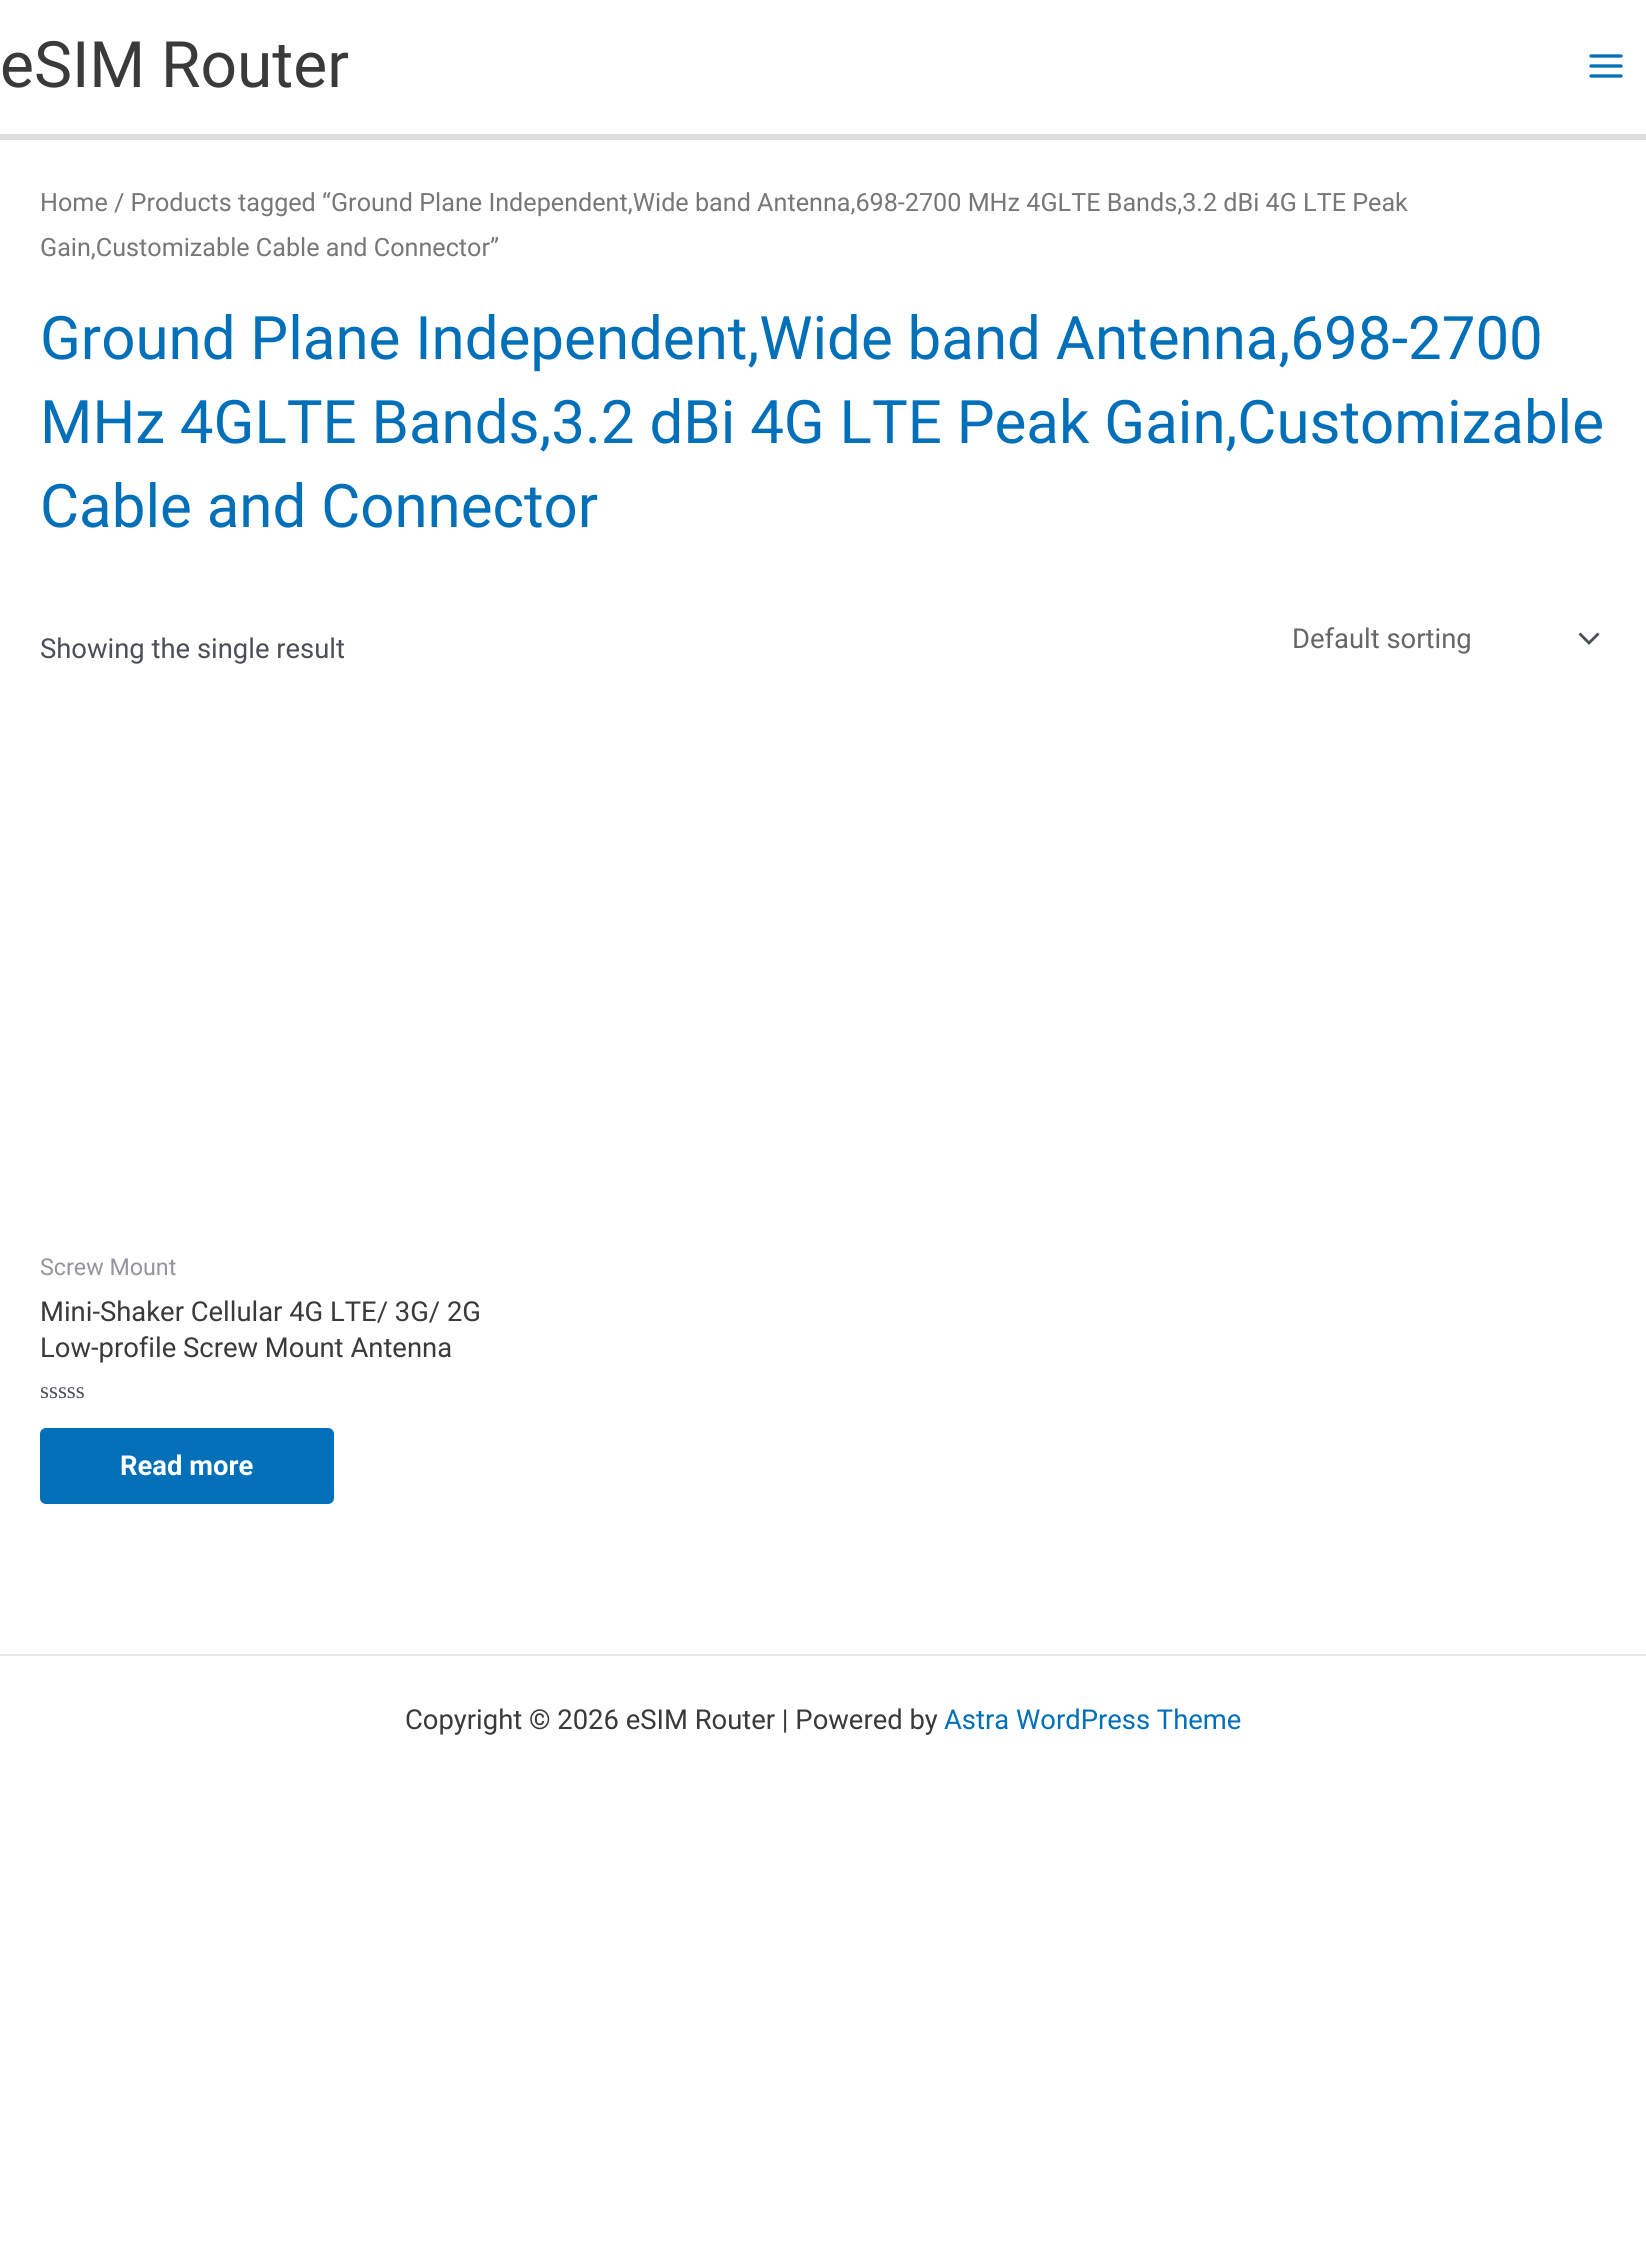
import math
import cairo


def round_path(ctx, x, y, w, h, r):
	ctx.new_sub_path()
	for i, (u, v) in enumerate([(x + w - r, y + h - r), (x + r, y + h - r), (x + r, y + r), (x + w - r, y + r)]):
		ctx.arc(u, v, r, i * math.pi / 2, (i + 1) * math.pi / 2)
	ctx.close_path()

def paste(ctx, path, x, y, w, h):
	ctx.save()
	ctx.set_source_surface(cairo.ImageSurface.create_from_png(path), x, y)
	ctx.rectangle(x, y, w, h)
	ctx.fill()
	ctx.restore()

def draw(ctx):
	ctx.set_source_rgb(1, 1, 1)
	ctx.paint()
	ctx.set_source_rgb(0.867, 0.867, 0.867)
	ctx.rectangle(0, 134, 1646, 6)
	ctx.fill()
	ctx.select_font_face('Roboto')
	ctx.set_font_size(64)
	ctx.set_source_rgb(0.227, 0.227, 0.227)
	ctx.move_to(0, 87)
	ctx.show_text('eSIM Router')
	paste(ctx, 'media/1.png', 1589, 54, 34, 24)
	ctx.set_font_size(25.17)
	ctx.set_source_rgb(0.467, 0.467, 0.467)
	ctx.move_to(40, 211)
	ctx.show_text('Home / Products tagged “Ground Plane Independent,Wide band Antenna,698-2700 MHz 4GLTE Bands,3.2 dBi 4G LTE Peak')
	ctx.move_to(40, 256)
	ctx.show_text('Gain,Customizable Cable and Connector”')
	ctx.set_font_size(60)
	ctx.set_source_rgb(0.004, 0.439, 0.725)
	for x, y, s in [
		(40, 359, 'Ground Plane Independent,Wide band Antenna,698-2700'),
		(40, 443, 'MHz 4GLTE Bands,3.2 dBi 4G LTE Peak Gain,Customizable'),
		(40, 527, 'Cable and Connector'),
	]:
		ctx.move_to(x, y)
		ctx.show_text(s)
	ctx.set_font_size(27.4)
	ctx.set_source_rgb(0.294, 0.31, 0.345)
	ctx.move_to(40, 658)
	ctx.show_text('Showing the single result')
	ctx.new_path()
	ctx.move_to(1578.5, 634.5)
	ctx.line_to(1589, 645)
	ctx.line_to(1599.5, 634.5)
	ctx.line_to(1597.5, 632.5)
	ctx.line_to(1589, 641)
	ctx.line_to(1580.5, 632.5)
	ctx.close_path()
	ctx.fill()
	ctx.set_source_rgb(0.4, 0.4, 0.4)
	ctx.move_to(1292, 648)
	ctx.show_text('Default sorting')
	ctx.set_font_size(23.25)
	ctx.set_source_rgb(0.576, 0.584, 0.608)
	ctx.move_to(40, 1275)
	ctx.show_text('Screw Mount')
	ctx.set_font_size(27.4)
	ctx.set_source_rgb(0.227, 0.227, 0.227)
	ctx.move_to(40, 1321)
	ctx.show_text('Mini-Shaker Cellular 4G LTE/ 3G/ 2G')
	ctx.move_to(40, 1357)
	ctx.show_text('Low-profile Screw Mount Antenna')
	ctx.select_font_face('Liberation Serif')
	ctx.set_font_size(23)
	ctx.set_source_rgb(0.294, 0.31, 0.345)
	ctx.move_to(40, 1398)
	ctx.show_text('sssss')
	ctx.set_source_rgb(0.004, 0.439, 0.725)
	round_path(ctx, 40, 1428, 294, 76, 6)
	ctx.fill()
	ctx.select_font_face('Roboto', cairo.FONT_SLANT_NORMAL, cairo.FONT_WEIGHT_BOLD)
	ctx.set_font_size(27.4)
	ctx.set_source_rgb(1, 1, 1)
	ctx.move_to(120, 1475)
	ctx.show_text('Read more')
	ctx.set_source_rgb(0.898, 0.898, 0.898)
	ctx.rectangle(0, 1654, 1646, 2)
	ctx.fill()
	ctx.select_font_face('Roboto')
	ctx.set_source_rgb(0.227, 0.227, 0.227)
	ctx.move_to(405, 1729)
	ctx.show_text('Copyright © 2026 eSIM Router | Powered by')
	ctx.set_source_rgb(0.004, 0.439, 0.725)
	ctx.move_to(944, 1729)
	ctx.show_text('Astra WordPress Theme')


surface = cairo.ImageSurface(cairo.FORMAT_RGB24, 1646, 2259)
ctx = cairo.Context(surface)
options = cairo.FontOptions()
options.set_hint_metrics(cairo.HINT_METRICS_OFF)
options.set_hint_style(cairo.HINT_STYLE_NONE)
ctx.set_font_options(options)
ctx.set_miter_limit(4)
draw(ctx)
surface.write_to_png('image.png')
